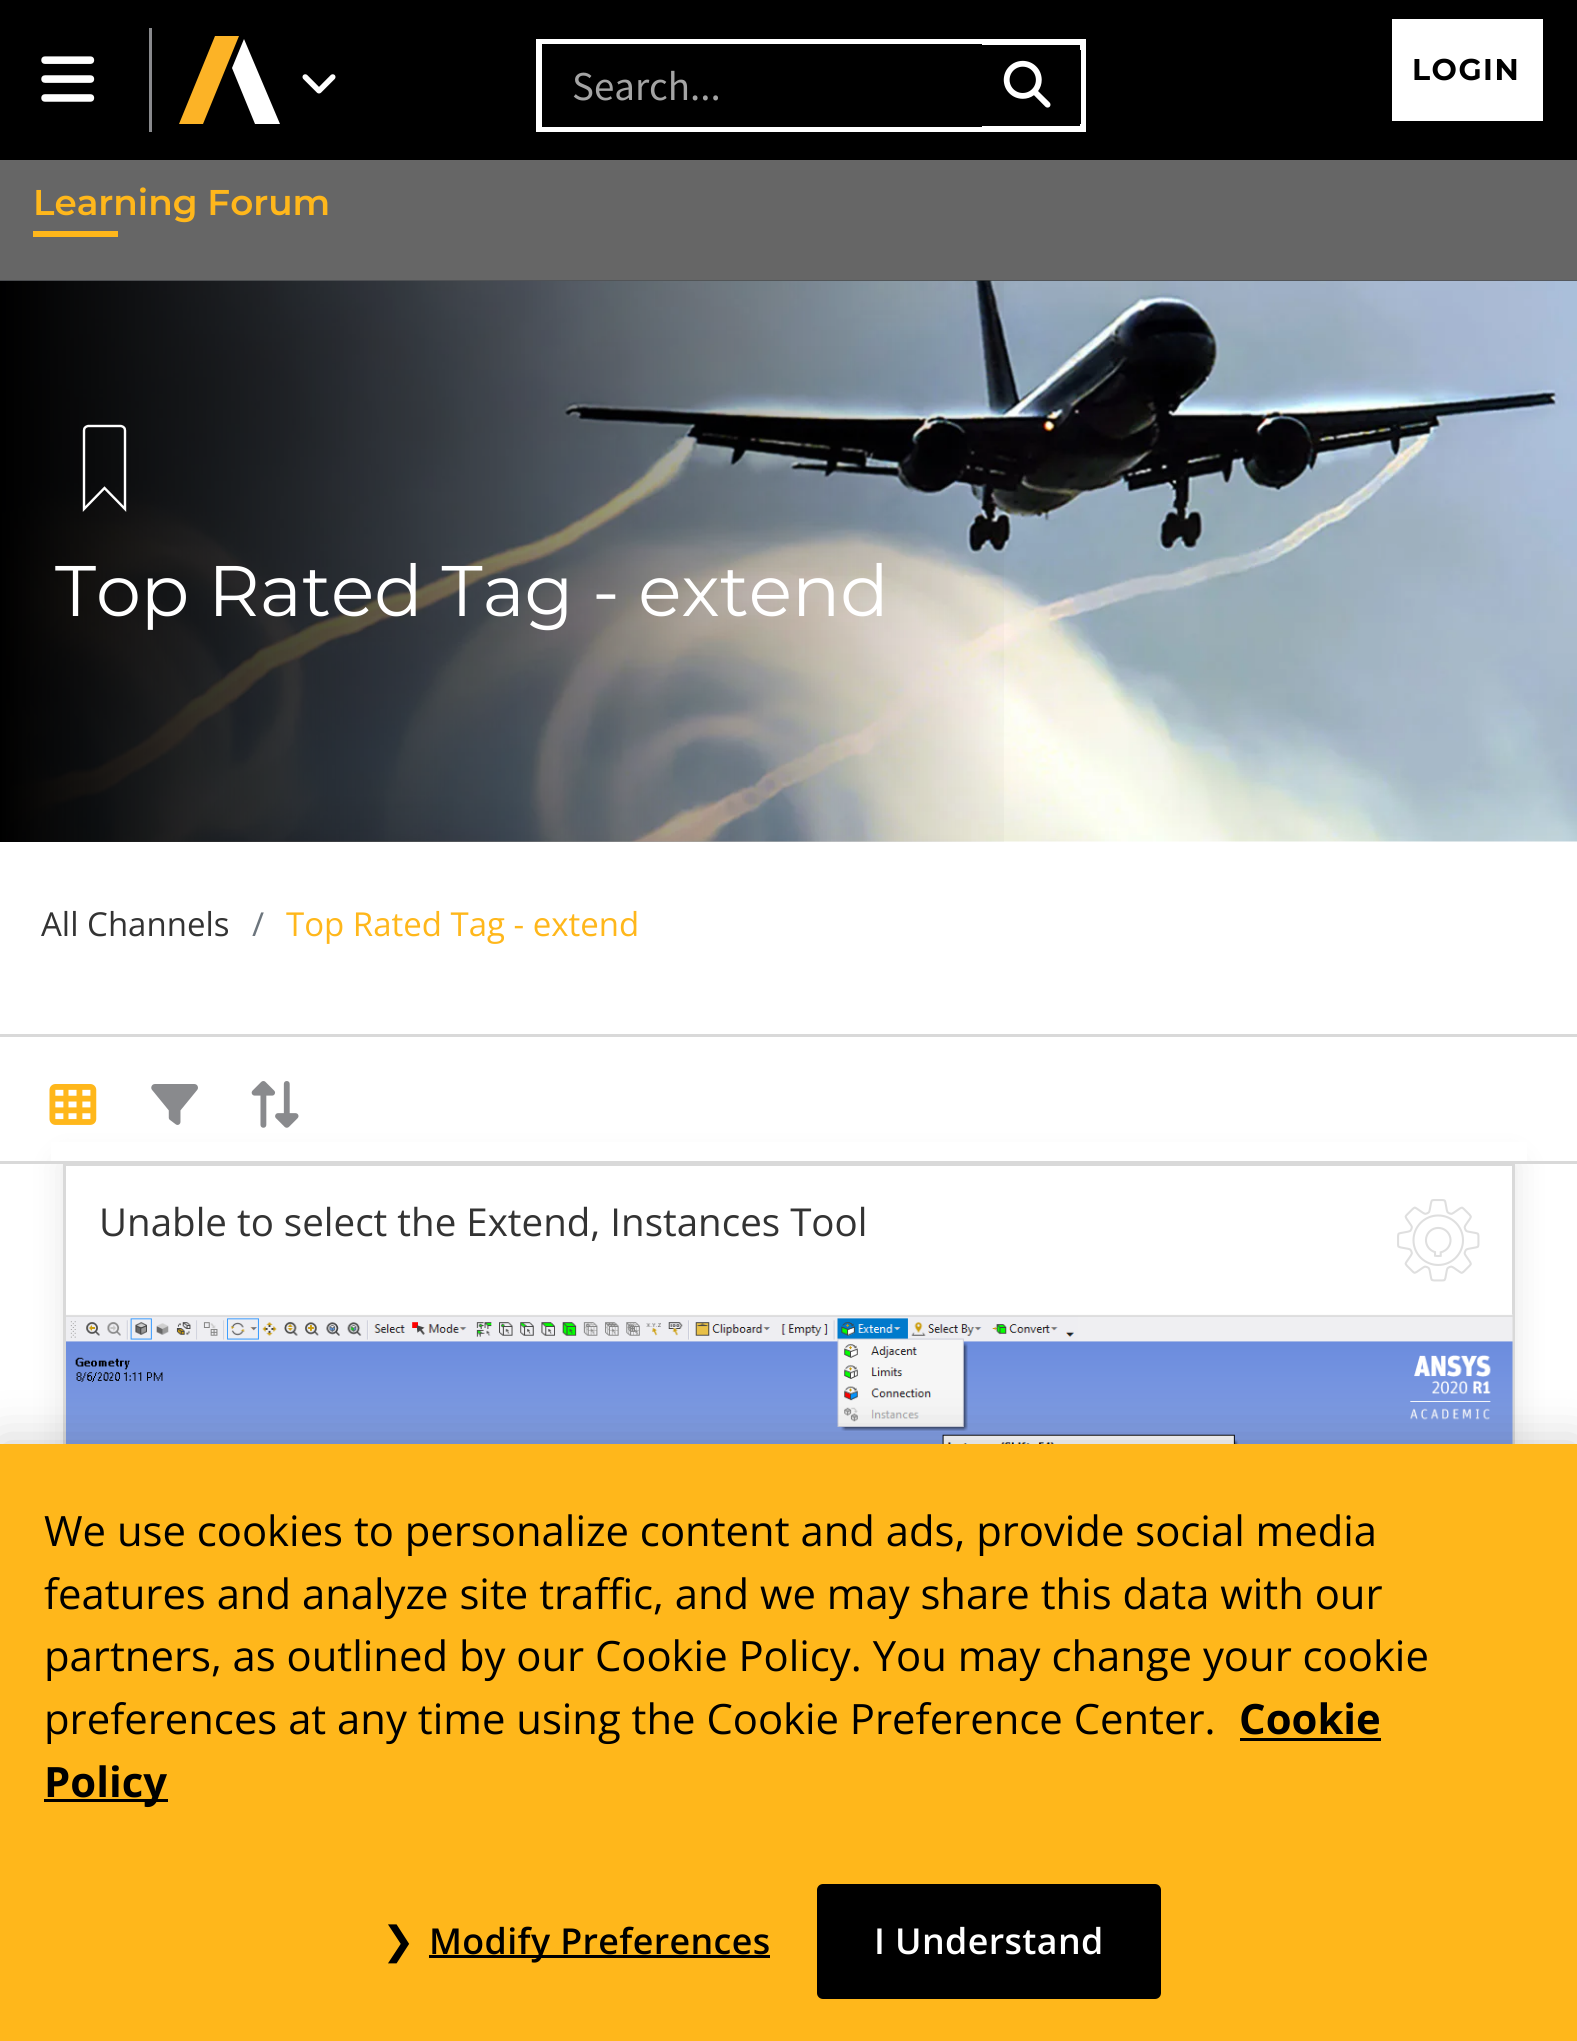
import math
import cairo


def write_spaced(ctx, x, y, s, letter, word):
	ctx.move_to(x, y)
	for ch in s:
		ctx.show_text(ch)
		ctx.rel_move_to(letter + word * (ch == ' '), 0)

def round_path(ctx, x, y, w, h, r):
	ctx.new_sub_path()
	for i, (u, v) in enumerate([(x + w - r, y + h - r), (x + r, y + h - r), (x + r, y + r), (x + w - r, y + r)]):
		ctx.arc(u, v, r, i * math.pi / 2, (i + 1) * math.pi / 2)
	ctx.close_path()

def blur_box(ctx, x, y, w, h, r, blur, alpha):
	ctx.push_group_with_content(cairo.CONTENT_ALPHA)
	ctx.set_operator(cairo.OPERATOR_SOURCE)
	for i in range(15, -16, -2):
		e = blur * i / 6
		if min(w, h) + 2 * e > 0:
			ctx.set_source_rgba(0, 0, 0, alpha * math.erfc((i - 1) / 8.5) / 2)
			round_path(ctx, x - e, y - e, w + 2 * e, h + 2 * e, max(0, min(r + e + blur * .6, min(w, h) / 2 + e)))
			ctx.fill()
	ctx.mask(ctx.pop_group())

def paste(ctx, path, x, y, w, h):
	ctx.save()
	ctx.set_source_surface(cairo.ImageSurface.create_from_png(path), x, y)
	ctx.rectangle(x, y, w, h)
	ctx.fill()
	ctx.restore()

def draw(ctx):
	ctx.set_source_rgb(1, 1, 1)
	ctx.paint()
	ctx.set_source_rgb(0, 0, 0)
	ctx.rectangle(0, 0, 1577, 160)
	ctx.fill()
	paste(ctx, 'media/1.png', 41, 56, 54, 46)
	ctx.set_source_rgb(0.537, 0.541, 0.553)
	ctx.rectangle(149, 28, 3, 104)
	ctx.fill()
	ctx.set_source_rgb(0.988, 0.702, 0.149)
	ctx.new_path()
	ctx.move_to(179, 124)
	ctx.line_to(215, 36)
	ctx.line_to(239, 36)
	ctx.line_to(203, 124)
	ctx.close_path()
	ctx.fill()
	ctx.set_source_rgb(1, 1, 1)
	ctx.new_path()
	ctx.move_to(280, 124)
	ctx.line_to(255, 124)
	ctx.line_to(232, 68)
	ctx.line_to(244, 39)
	ctx.close_path()
	ctx.fill()
	paste(ctx, 'media/2.png', 302, 74, 34, 20)
	ctx.rectangle(539, 42, 544, 87)
	ctx.set_line_width(6)
	ctx.stroke()
	ctx.rectangle(543.5, 45.5, 437, 80)
	ctx.set_source_rgb(0, 0, 0)
	ctx.set_line_width(3)
	ctx.stroke()
	ctx.select_font_face('Source Sans Pro')
	ctx.set_font_size(41)
	ctx.set_source_rgb(0.643, 0.643, 0.643)
	ctx.move_to(572, 100)
	ctx.show_text('Search...')
	ctx.rectangle(980.5, 51.5, 99, 71)
	ctx.set_source_rgb(0, 0, 0)
	ctx.stroke()
	paste(ctx, 'media/3.png', 1003, 60, 48, 48)
	ctx.set_source_rgb(1, 1, 1)
	ctx.rectangle(1392, 19, 151, 102)
	ctx.fill()
	ctx.select_font_face('Montserrat', cairo.FONT_SLANT_NORMAL, cairo.FONT_WEIGHT_BOLD)
	ctx.set_font_size(30)
	ctx.set_source_rgb(0, 0, 0)
	write_spaced(ctx, 1412, 80, 'LOGIN', 1.5, 0)
	paste(ctx, 'media/4.png', 0, 280, 1577, 562)
	ctx.set_source_rgba(0, 0, 0, 0.6)
	ctx.rectangle(0, 160, 1577, 121)
	ctx.fill()
	ctx.select_font_face('Montserrat SemiBold')
	ctx.set_font_size(35.75)
	ctx.set_source_rgb(1, 0.718, 0.106)
	ctx.move_to(33, 215)
	ctx.show_text('Learning Forum')
	ctx.rectangle(33, 231, 85, 6)
	ctx.fill()
	gradient = cairo.LinearGradient(0, 561, 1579, 561)
	gradient.add_color_stop_rgba(0, 0, 0, 0, 1)
	gradient.add_color_stop_rgba(0.65, 0, 0, 0, 0)
	ctx.set_source(gradient)
	ctx.rectangle(0, 281, 1004, 561)
	ctx.fill()
	ctx.new_path()
	ctx.move_to(125, 509)
	ctx.line_to(125, 430.5)
	ctx.curve_to(125, 428, 123.5, 426.5, 121, 426)
	ctx.line_to(88, 426)
	ctx.curve_to(85.5, 426.5, 84, 428, 84, 430.5)
	ctx.line_to(84, 509)
	ctx.line_to(104.5, 488)
	ctx.close_path()
	ctx.set_source_rgb(1, 1, 1)
	ctx.set_line_width(2.4)
	ctx.stroke()
	ctx.select_font_face('Montserrat')
	ctx.set_font_size(71.5)
	ctx.move_to(55, 616)
	ctx.show_text('Top Rated Tag - extend')
	ctx.select_font_face('Open Sans')
	ctx.set_font_size(33)
	ctx.set_source_rgb(0.2, 0.2, 0.2)
	ctx.move_to(41, 936)
	ctx.show_text('All Channels')
	ctx.set_source_rgb(0.424, 0.459, 0.49)
	ctx.move_to(252, 936)
	ctx.show_text('/')
	ctx.set_source_rgb(1, 0.718, 0.106)
	ctx.move_to(286, 936)
	ctx.show_text('Top Rated Tag - extend')
	ctx.set_source_rgb(0, 0, 0)
	blur_box(ctx, 63, 1163, 1452, 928, 0, 16.5, 0.1)
	ctx.set_source_rgb(1, 1, 1)
	ctx.rectangle(51, 1142, 1476, 19)
	ctx.fill()
	ctx.set_source_rgb(0.851, 0.851, 0.851)
	ctx.rectangle(0, 1034, 1577, 3)
	ctx.fill()
	ctx.set_source_rgb(1, 1, 1)
	ctx.rectangle(66, 1166, 1446, 149)
	ctx.fill()
	ctx.rectangle(64.5, 1164.5, 1449, 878)
	ctx.set_source_rgb(0.851, 0.851, 0.851)
	ctx.set_line_width(3)
	ctx.stroke()
	ctx.rectangle(0, 1161, 1577, 3)
	ctx.fill()
	paste(ctx, 'media/5.png', 49, 1084, 48, 41)
	paste(ctx, 'media/6.png', 151, 1084, 47, 41)
	paste(ctx, 'media/7.png', 251, 1081, 48, 47)
	ctx.set_font_size(38.5)
	ctx.set_source_rgb(0.2, 0.2, 0.2)
	ctx.move_to(99, 1236)
	ctx.show_text('Unable to select the Extend, Instances Tool')
	paste(ctx, 'media/8.png', 1397, 1199, 83, 83)
	paste(ctx, 'media/9.png', 66, 1314, 1447, 130)
	ctx.set_source_rgb(0, 0, 0)
	blur_box(ctx, 0, 1444, 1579, 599, 0, 25, 0.2)
	ctx.set_source_rgb(1, 0.718, 0.106)
	ctx.rectangle(0, 1444, 1577, 597)
	ctx.fill()
	ctx.set_font_size(41.8)
	ctx.set_source_rgb(0, 0, 0)
	for x, y, s in [
		(44, 1546, 'We use cookies to personalize content and ads, provide social media'),
		(44, 1609, 'features and analyze site traffic, and we may share this data with our'),
		(44, 1671, 'partners, as outlined by our Cookie Policy. You may change your cookie'),
		(44, 1734, 'preferences at any time using the Cookie Preference Center.'),
	]:
		ctx.move_to(x, y)
		ctx.show_text(s)
	ctx.select_font_face('Open Sans', cairo.FONT_SLANT_NORMAL, cairo.FONT_WEIGHT_BOLD)
	ctx.move_to(1239, 1734)
	ctx.show_text('Cookie')
	ctx.rectangle(1240, 1738, 141, 3)
	ctx.fill()
	ctx.rectangle(44, 1799, 124, 3)
	ctx.fill()
	ctx.move_to(44, 1797)
	ctx.show_text('Policy')
	ctx.select_font_face('DejaVu Sans')
	ctx.set_font_size(39)
	write_spaced(ctx, 382, 1954, '❯', 0.4, 0)
	ctx.rectangle(429, 1955, 341, 3)
	ctx.fill()
	ctx.select_font_face('Open Sans SemiBold')
	ctx.set_font_size(35.75)
	write_spaced(ctx, 429, 1954, 'Modify Preferences', 0.4, 0)
	round_path(ctx, 818.5, 1885.5, 341, 112, 4.5)
	ctx.fill_preserve()
	ctx.stroke()
	ctx.set_source_rgb(1, 1, 1)
	write_spaced(ctx, 874, 1954, 'I Understand', 0.4, 0)


surface = cairo.ImageSurface(cairo.FORMAT_RGB24, 1577, 2041)
ctx = cairo.Context(surface)
options = cairo.FontOptions()
options.set_hint_metrics(cairo.HINT_METRICS_OFF)
options.set_hint_style(cairo.HINT_STYLE_NONE)
ctx.set_font_options(options)
ctx.set_miter_limit(4)
draw(ctx)
surface.write_to_png('image.png')
